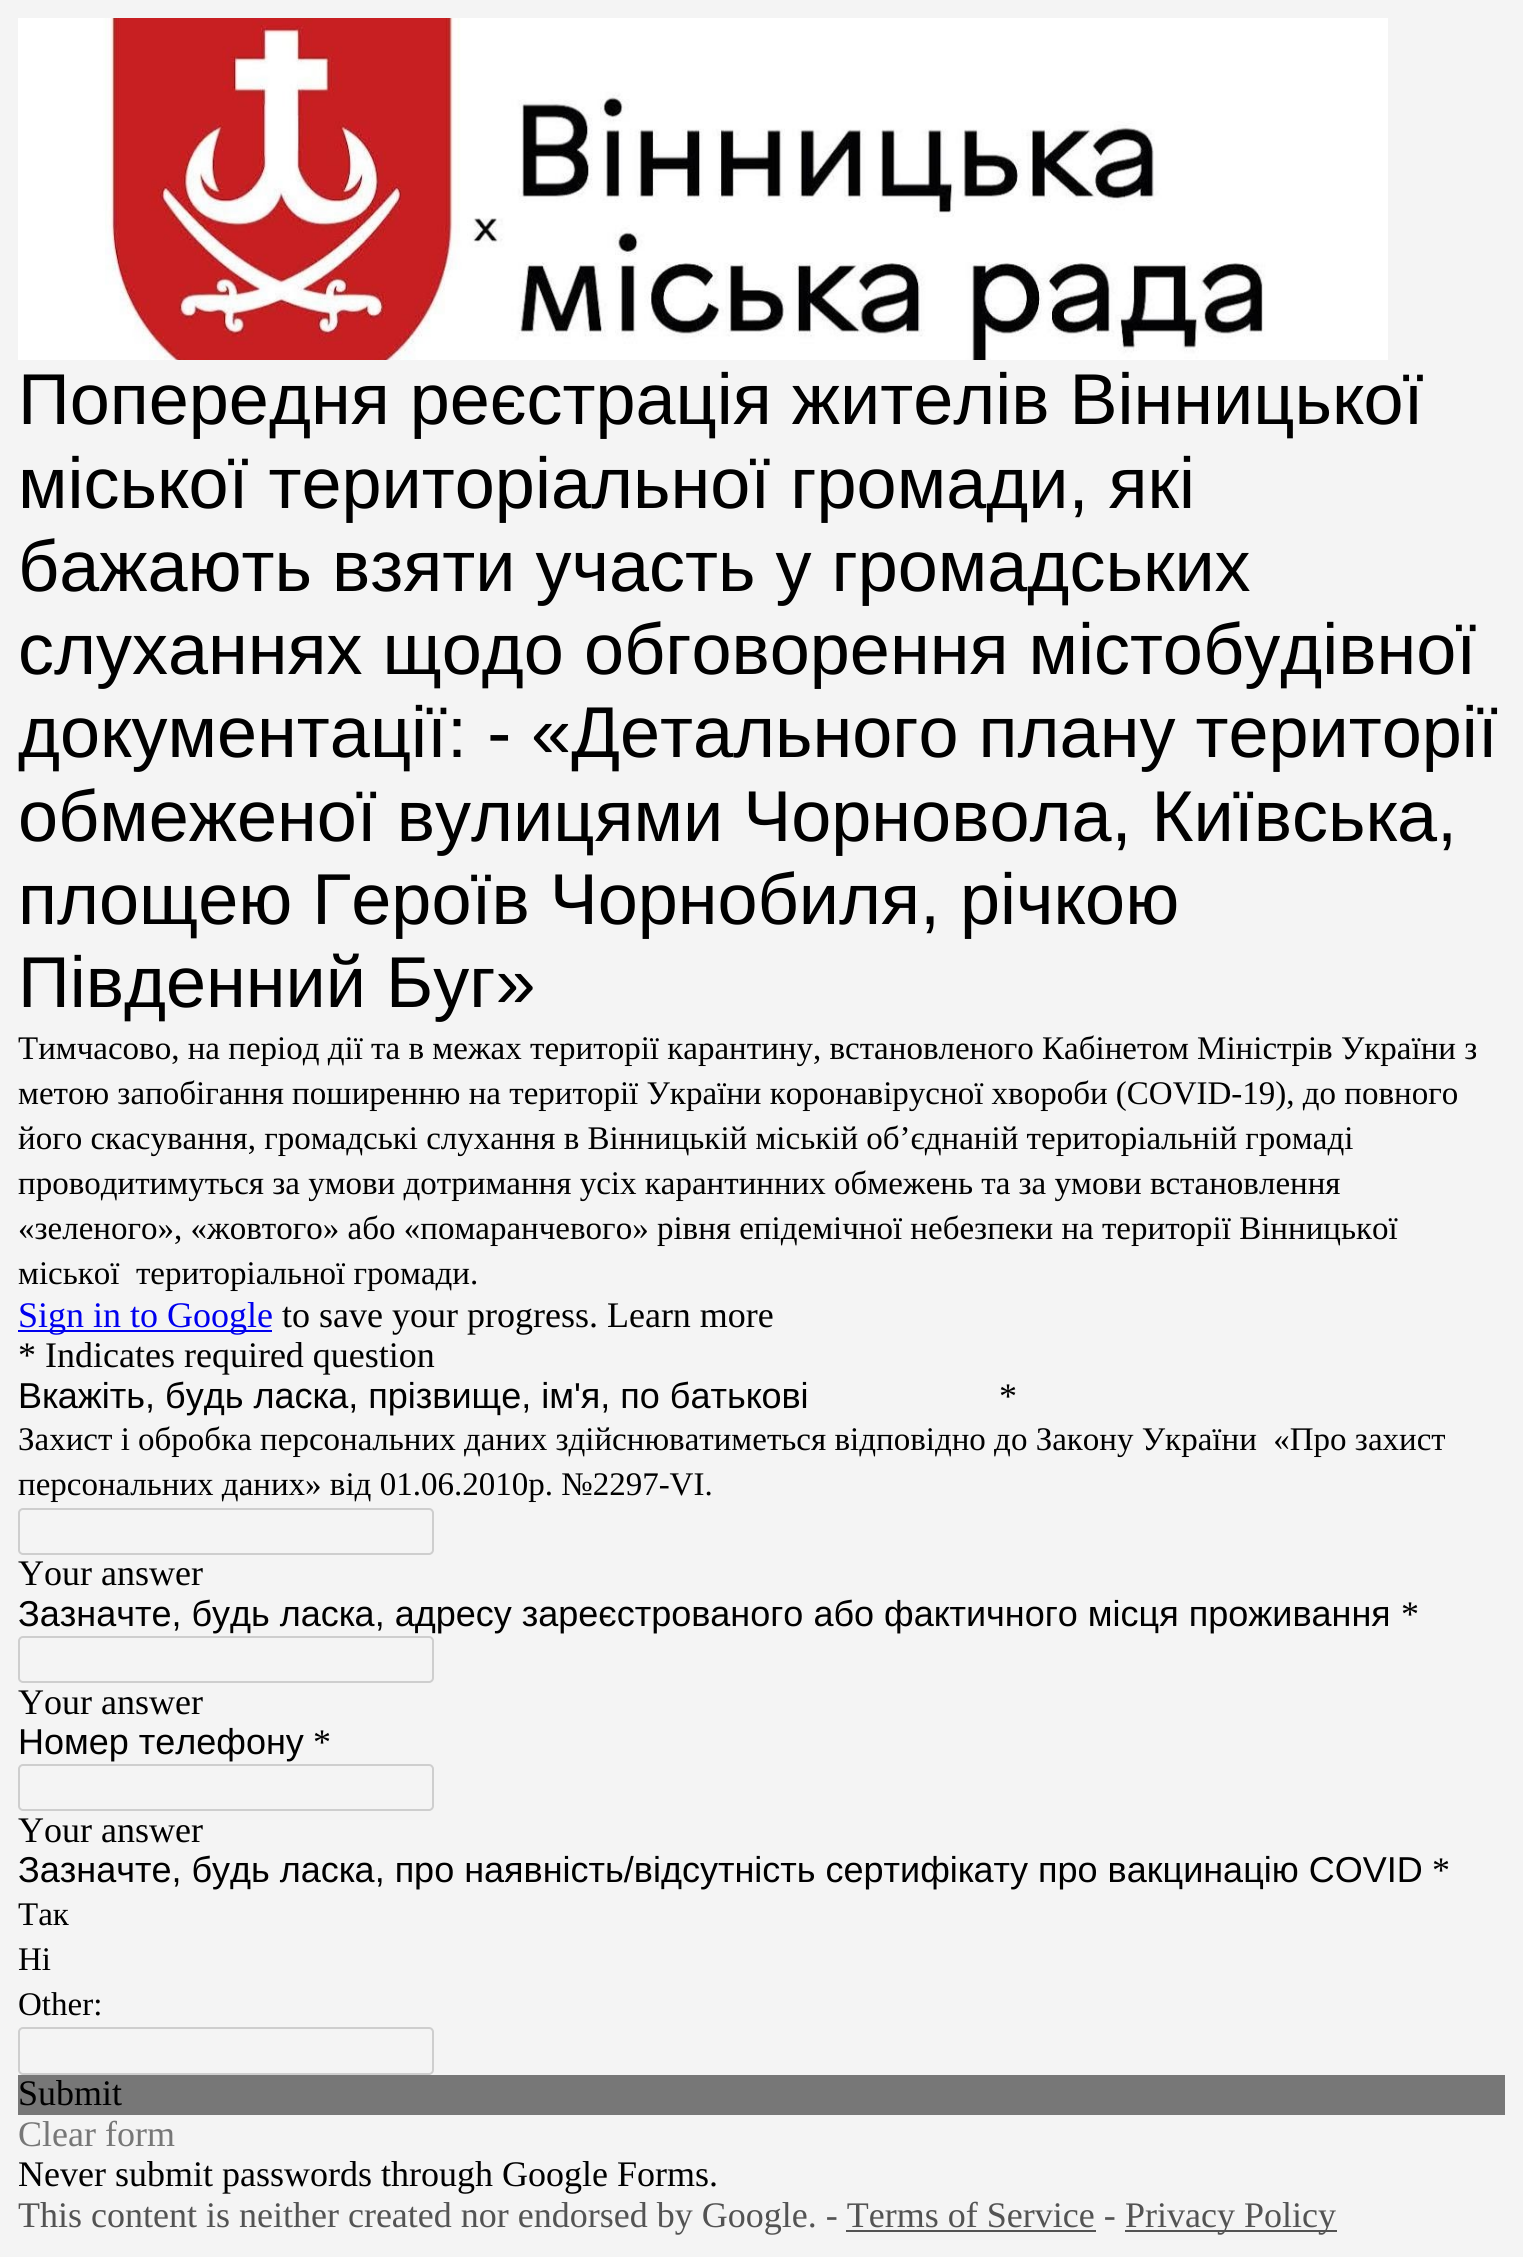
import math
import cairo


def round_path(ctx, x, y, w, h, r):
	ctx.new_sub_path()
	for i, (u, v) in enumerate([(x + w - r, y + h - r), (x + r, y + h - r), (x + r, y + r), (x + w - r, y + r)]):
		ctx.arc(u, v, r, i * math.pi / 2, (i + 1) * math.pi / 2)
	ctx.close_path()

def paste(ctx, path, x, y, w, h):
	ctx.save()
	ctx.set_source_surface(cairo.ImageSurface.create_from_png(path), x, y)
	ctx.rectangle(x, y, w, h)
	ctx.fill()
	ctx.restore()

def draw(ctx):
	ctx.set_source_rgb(0.957, 0.957, 0.957)
	ctx.paint()
	paste(ctx, 'media/1.png', 18, 18, 1370, 342)
	ctx.select_font_face('Liberation Sans')
	ctx.set_font_size(72)
	ctx.set_source_rgb(0, 0, 0)
	for x, y, s in [
		(18, 424, 'Попередня реєстрація жителів Вінницької'),
		(18, 508, 'міської територіальної громади, які'),
		(18, 591, 'бажають взяти участь у громадських'),
		(18, 674, 'слуханнях щодо обговорення містобудівної'),
		(18, 757, 'документації: - «Детального плану території'),
		(18, 841, 'обмеженої вулицями Чорновола, Київська,'),
		(18, 924, 'площею Героїв Чорнобиля, річкою'),
		(18, 1007, 'Південний Буг»'),
	]:
		ctx.move_to(x, y)
		ctx.show_text(s)
	ctx.select_font_face('Liberation Serif')
	ctx.set_font_size(33)
	for x, y, s in [
		(18, 1059, 'Тимчасово, на період дії та в межах території карантину, встановленого Кабінетом Міністрів України з'),
		(18, 1104, 'метою запобігання поширенню на території України коронавірусної хвороби (COVID-19), до повного'),
		(18, 1149, 'його скасування, громадські слухання в Вінницькій міській об’єднаній територіальній громаді'),
		(18, 1194, 'проводитимуться за умови дотримання усіх карантинних обмежень та за умови встановлення'),
		(18, 1239, '«зеленого», «жовтого» або «помаранчевого» рівня епідемічної небезпеки на території Вінницької'),
		(18, 1284, 'міської  територіальної громади.'),
	]:
		ctx.move_to(x, y)
		ctx.show_text(s)
	ctx.set_source_rgb(0, 0, 0.933)
	ctx.rectangle(18, 1330, 254, 2)
	ctx.fill()
	ctx.set_font_size(36)
	ctx.move_to(18, 1327)
	ctx.show_text('Sign in to Google')
	ctx.set_source_rgb(0, 0, 0)
	ctx.move_to(282, 1327)
	ctx.show_text('to save your progress. Learn more')
	ctx.move_to(18, 1367)
	ctx.show_text('* Indicates required question')
	ctx.select_font_face('Liberation Sans')
	ctx.move_to(18, 1408)
	ctx.show_text('Вкажіть, будь ласка, прізвище, ім\'я, по батькові')
	ctx.select_font_face('Liberation Serif')
	ctx.move_to(999, 1408)
	ctx.show_text('*')
	ctx.set_font_size(33)
	ctx.move_to(18, 1450)
	ctx.show_text('Захист і обробка персональних даних здійснюватиметься відповідно до Закону України  «Про захист')
	ctx.move_to(18, 1495)
	ctx.show_text('персональних даних» від 01.06.2010р. №2297-VI.')
	round_path(ctx, 19, 1509, 414, 45, 4)
	ctx.set_source_rgb(0.808, 0.808, 0.808)
	ctx.stroke()
	ctx.set_font_size(36)
	ctx.set_source_rgb(0, 0, 0)
	ctx.move_to(18, 1585)
	ctx.show_text('Your answer')
	ctx.select_font_face('Liberation Sans')
	ctx.move_to(18, 1626)
	ctx.show_text('Зазначте, будь ласка, адресу зареєстрованого або фактичного місця проживання')
	ctx.select_font_face('Liberation Serif')
	ctx.move_to(1401, 1626)
	ctx.show_text('*')
	round_path(ctx, 19, 1637, 414, 45, 4)
	ctx.set_source_rgb(0.808, 0.808, 0.808)
	ctx.stroke()
	ctx.set_source_rgb(0, 0, 0)
	ctx.move_to(18, 1714)
	ctx.show_text('Your answer')
	ctx.select_font_face('Liberation Sans')
	ctx.move_to(18, 1754)
	ctx.show_text('Номер телефону')
	ctx.select_font_face('Liberation Serif')
	ctx.move_to(313, 1754)
	ctx.show_text('*')
	round_path(ctx, 19, 1765, 414, 45, 4)
	ctx.set_source_rgb(0.808, 0.808, 0.808)
	ctx.stroke()
	ctx.set_source_rgb(0, 0, 0)
	ctx.move_to(18, 1842)
	ctx.show_text('Your answer')
	ctx.select_font_face('Liberation Sans')
	ctx.move_to(18, 1882)
	ctx.show_text('Зазначте, будь ласка, про наявність/відсутність сертифікату про вакцинацію COVID')
	ctx.select_font_face('Liberation Serif')
	ctx.move_to(1432, 1882)
	ctx.show_text('*')
	ctx.set_font_size(33)
	for x, y, s in [
		(18, 1925, 'Так'),
		(18, 1970, 'Ні'),
		(18, 2015, 'Other:'),
	]:
		ctx.move_to(x, y)
		ctx.show_text(s)
	round_path(ctx, 19, 2028, 414, 46, 4)
	ctx.set_source_rgb(0.808, 0.808, 0.808)
	ctx.stroke()
	ctx.set_source_rgb(0.467, 0.467, 0.467)
	ctx.rectangle(18, 2075, 1487, 40)
	ctx.fill()
	ctx.set_font_size(36)
	ctx.set_source_rgb(0, 0, 0)
	ctx.move_to(18, 2105)
	ctx.show_text('Submit')
	ctx.set_source_rgb(0.467, 0.467, 0.467)
	ctx.move_to(18, 2146)
	ctx.show_text('Clear form')
	ctx.set_source_rgb(0, 0, 0)
	ctx.move_to(18, 2186)
	ctx.show_text('Never submit passwords through Google Forms.')
	ctx.set_source_rgb(0.325, 0.325, 0.325)
	ctx.move_to(18, 2227)
	ctx.show_text('This content is neither created nor endorsed by Google. - Terms of Service -')
	ctx.rectangle(1125, 2230, 212, 2)
	ctx.fill()
	ctx.move_to(1125, 2227)
	ctx.show_text('Privacy Policy')
	ctx.rectangle(846, 2230, 250, 2)
	ctx.fill()


surface = cairo.ImageSurface(cairo.FORMAT_RGB24, 1523, 2257)
ctx = cairo.Context(surface)
options = cairo.FontOptions()
options.set_hint_metrics(cairo.HINT_METRICS_OFF)
options.set_hint_style(cairo.HINT_STYLE_NONE)
ctx.set_font_options(options)
ctx.set_miter_limit(4)
draw(ctx)
surface.write_to_png('image.png')
